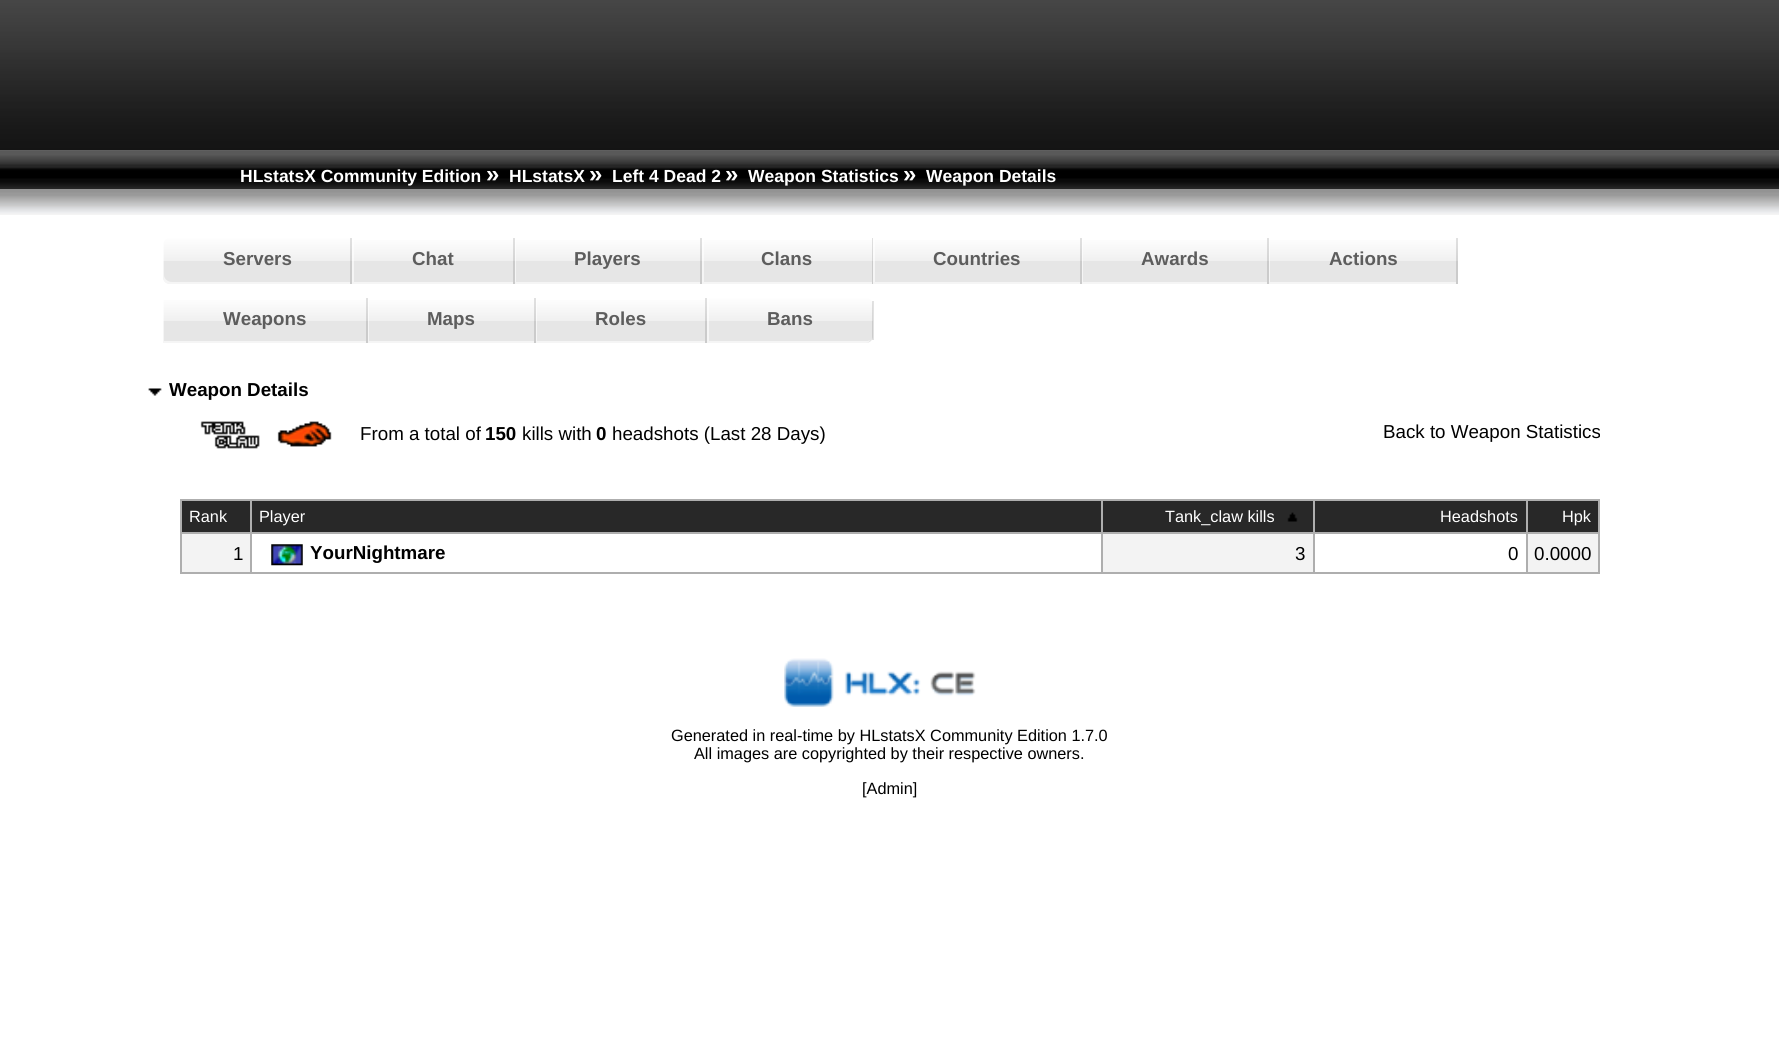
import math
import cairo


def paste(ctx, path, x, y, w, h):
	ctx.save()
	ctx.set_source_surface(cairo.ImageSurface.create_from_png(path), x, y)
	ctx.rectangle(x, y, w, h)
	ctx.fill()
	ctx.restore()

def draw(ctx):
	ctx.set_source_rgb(1, 1, 1)
	ctx.paint()
	paste(ctx, 'media/2.png', 0, 150, 1779, 39)
	paste(ctx, 'media/1.png', 0, 0, 1779, 151)
	ctx.select_font_face('Liberation Sans', cairo.FONT_SLANT_NORMAL, cairo.FONT_WEIGHT_BOLD)
	ctx.set_font_size(17.5)
	ctx.set_source_rgb(1, 1, 1)
	ctx.move_to(240, 182)
	ctx.show_text('HLstatsX Community Edition')
	ctx.set_font_size(24)
	ctx.move_to(486, 182)
	ctx.show_text('»')
	ctx.set_font_size(17.5)
	ctx.move_to(509, 182)
	ctx.show_text('HLstatsX')
	ctx.set_font_size(24)
	ctx.move_to(589, 182)
	ctx.show_text('»')
	ctx.set_font_size(17.5)
	ctx.move_to(612, 182)
	ctx.show_text('Left 4 Dead 2')
	ctx.set_font_size(24)
	ctx.move_to(725, 182)
	ctx.show_text('»')
	ctx.set_font_size(17.5)
	ctx.move_to(748, 182)
	ctx.show_text('Weapon Statistics')
	ctx.set_font_size(24)
	ctx.move_to(903, 182)
	ctx.show_text('»')
	ctx.set_font_size(17.5)
	ctx.move_to(926, 182)
	ctx.show_text('Weapon Details')
	paste(ctx, 'media/3.png', 0, 189, 1779, 26)
	gradient = cairo.LinearGradient(256, 238, 256, 284)
	gradient.add_color_stop_rgba(0, 0.996, 0.996, 0.996, 1)
	gradient.add_color_stop_rgba(0.5, 0.941, 0.941, 0.941, 1)
	gradient.add_color_stop_rgba(0.51, 0.902, 0.902, 0.902, 1)
	ctx.set_source(gradient)
	ctx.new_path()
	ctx.move_to(170, 238)
	ctx.line_to(352, 238)
	ctx.line_to(352, 284)
	ctx.line_to(170, 284)
	ctx.curve_to(166, 284, 163, 281, 163, 277)
	ctx.line_to(163, 245)
	ctx.curve_to(163, 241, 166, 238, 170, 238)
	ctx.close_path()
	ctx.fill()
	gradient = cairo.LinearGradient(256, 238, 256, 284)
	gradient.add_color_stop_rgba(0, 0.882, 0.882, 0.882, 1)
	gradient.add_color_stop_rgba(0.5, 0.831, 0.831, 0.831, 1)
	gradient.add_color_stop_rgba(0.51, 0.796, 0.796, 0.796, 1)
	ctx.set_source(gradient)
	ctx.rectangle(350, 238, 2, 46)
	ctx.fill()
	ctx.set_source_rgba(1, 1, 1, 0.6)
	ctx.new_path()
	ctx.move_to(164, 241)
	ctx.line_to(164, 243)
	ctx.line_to(164, 275)
	ctx.curve_to(164, 279, 168, 282, 172, 282)
	ctx.line_to(350, 282)
	ctx.line_to(350, 284)
	ctx.line_to(170, 284)
	ctx.curve_to(166, 284, 163, 281, 163, 277)
	ctx.line_to(163, 245)
	ctx.curve_to(163, 243, 164, 242, 164, 241)
	ctx.close_path()
	ctx.fill()
	ctx.set_font_size(18.75)
	ctx.set_source_rgb(0.365, 0.365, 0.365)
	ctx.move_to(223, 265)
	ctx.show_text('Servers')
	gradient = cairo.LinearGradient(432, 238, 432, 284)
	gradient.add_color_stop_rgba(0, 0.996, 0.996, 0.996, 1)
	gradient.add_color_stop_rgba(0.5, 0.941, 0.941, 0.941, 1)
	gradient.add_color_stop_rgba(0.51, 0.902, 0.902, 0.902, 1)
	ctx.set_source(gradient)
	ctx.rectangle(352, 240, 161, 44)
	ctx.fill()
	gradient = cairo.LinearGradient(432, 238, 432, 284)
	gradient.add_color_stop_rgba(0, 0.882, 0.882, 0.882, 1)
	gradient.add_color_stop_rgba(0.5, 0.831, 0.831, 0.831, 1)
	gradient.add_color_stop_rgba(0.51, 0.796, 0.796, 0.796, 1)
	ctx.set_source(gradient)
	ctx.rectangle(513, 238, 2, 46)
	ctx.fill()
	ctx.save()
	ctx.rectangle(352, 238, 161, 46)
	ctx.clip()
	ctx.set_source_rgba(1, 1, 1, 0.6)
	ctx.new_path()
	ctx.move_to(178, 357)
	ctx.line_to(178, 238)
	ctx.line_to(354, 238)
	ctx.line_to(354, 282)
	ctx.line_to(514, 282)
	ctx.line_to(514, 238)
	ctx.line_to(686, 238)
	ctx.line_to(686, 357)
	ctx.close_path()
	ctx.fill()
	ctx.restore()
	ctx.set_source_rgb(0.365, 0.365, 0.365)
	ctx.move_to(412, 265)
	ctx.show_text('Chat')
	gradient = cairo.LinearGradient(607, 238, 607, 284)
	gradient.add_color_stop_rgba(0, 0.996, 0.996, 0.996, 1)
	gradient.add_color_stop_rgba(0.5, 0.941, 0.941, 0.941, 1)
	gradient.add_color_stop_rgba(0.51, 0.902, 0.902, 0.902, 1)
	ctx.set_source(gradient)
	ctx.rectangle(515, 240, 185, 44)
	ctx.fill()
	gradient = cairo.LinearGradient(607, 238, 607, 284)
	gradient.add_color_stop_rgba(0, 0.882, 0.882, 0.882, 1)
	gradient.add_color_stop_rgba(0.5, 0.831, 0.831, 0.831, 1)
	gradient.add_color_stop_rgba(0.51, 0.796, 0.796, 0.796, 1)
	ctx.set_source(gradient)
	ctx.rectangle(700, 238, 2, 46)
	ctx.fill()
	ctx.save()
	ctx.rectangle(515, 238, 185, 46)
	ctx.clip()
	ctx.set_source_rgba(1, 1, 1, 0.6)
	ctx.new_path()
	ctx.move_to(341, 357)
	ctx.line_to(341, 238)
	ctx.line_to(516, 238)
	ctx.line_to(516, 282)
	ctx.line_to(702, 282)
	ctx.line_to(702, 238)
	ctx.line_to(873, 238)
	ctx.line_to(873, 357)
	ctx.close_path()
	ctx.fill()
	ctx.restore()
	ctx.set_source_rgb(0.365, 0.365, 0.365)
	ctx.move_to(574, 265)
	ctx.show_text('Players')
	gradient = cairo.LinearGradient(787, 238, 787, 284)
	gradient.add_color_stop_rgba(0, 0.996, 0.996, 0.996, 1)
	gradient.add_color_stop_rgba(0.5, 0.941, 0.941, 0.941, 1)
	gradient.add_color_stop_rgba(0.51, 0.902, 0.902, 0.902, 1)
	ctx.set_source(gradient)
	ctx.rectangle(702, 240, 170, 44)
	ctx.fill()
	gradient = cairo.LinearGradient(787, 238, 787, 284)
	gradient.add_color_stop_rgba(0, 0.882, 0.882, 0.882, 1)
	gradient.add_color_stop_rgba(0.5, 0.831, 0.831, 0.831, 1)
	gradient.add_color_stop_rgba(0.51, 0.796, 0.796, 0.796, 1)
	ctx.set_source(gradient)
	ctx.rectangle(872, 238, 1, 46)
	ctx.fill()
	ctx.save()
	ctx.rectangle(702, 238, 170, 46)
	ctx.clip()
	ctx.set_source_rgba(1, 1, 1, 0.6)
	ctx.new_path()
	ctx.move_to(528, 357)
	ctx.line_to(528, 238)
	ctx.line_to(704, 238)
	ctx.line_to(704, 282)
	ctx.line_to(873, 282)
	ctx.line_to(873, 238)
	ctx.line_to(1045, 238)
	ctx.line_to(1045, 357)
	ctx.close_path()
	ctx.fill()
	ctx.restore()
	ctx.set_source_rgb(0.365, 0.365, 0.365)
	ctx.move_to(761, 265)
	ctx.show_text('Clans')
	gradient = cairo.LinearGradient(977, 238, 977, 284)
	gradient.add_color_stop_rgba(0, 0.996, 0.996, 0.996, 1)
	gradient.add_color_stop_rgba(0.5, 0.941, 0.941, 0.941, 1)
	gradient.add_color_stop_rgba(0.51, 0.902, 0.902, 0.902, 1)
	ctx.set_source(gradient)
	ctx.rectangle(873, 240, 207, 44)
	ctx.fill()
	gradient = cairo.LinearGradient(977, 238, 977, 284)
	gradient.add_color_stop_rgba(0, 0.882, 0.882, 0.882, 1)
	gradient.add_color_stop_rgba(0.5, 0.831, 0.831, 0.831, 1)
	gradient.add_color_stop_rgba(0.51, 0.796, 0.796, 0.796, 1)
	ctx.set_source(gradient)
	ctx.rectangle(1080, 238, 2, 46)
	ctx.fill()
	ctx.save()
	ctx.rectangle(873, 238, 207, 46)
	ctx.clip()
	ctx.set_source_rgba(1, 1, 1, 0.6)
	ctx.new_path()
	ctx.move_to(700, 357)
	ctx.line_to(700, 238)
	ctx.line_to(875, 238)
	ctx.line_to(875, 282)
	ctx.line_to(1082, 282)
	ctx.line_to(1082, 238)
	ctx.line_to(1253, 238)
	ctx.line_to(1253, 357)
	ctx.close_path()
	ctx.fill()
	ctx.restore()
	ctx.set_source_rgb(0.365, 0.365, 0.365)
	ctx.move_to(933, 265)
	ctx.show_text('Countries')
	gradient = cairo.LinearGradient(1174, 238, 1174, 284)
	gradient.add_color_stop_rgba(0, 0.996, 0.996, 0.996, 1)
	gradient.add_color_stop_rgba(0.5, 0.941, 0.941, 0.941, 1)
	gradient.add_color_stop_rgba(0.51, 0.902, 0.902, 0.902, 1)
	ctx.set_source(gradient)
	ctx.rectangle(1082, 240, 185, 44)
	ctx.fill()
	gradient = cairo.LinearGradient(1174, 238, 1174, 284)
	gradient.add_color_stop_rgba(0, 0.882, 0.882, 0.882, 1)
	gradient.add_color_stop_rgba(0.5, 0.831, 0.831, 0.831, 1)
	gradient.add_color_stop_rgba(0.51, 0.796, 0.796, 0.796, 1)
	ctx.set_source(gradient)
	ctx.rectangle(1267, 238, 2, 46)
	ctx.fill()
	ctx.save()
	ctx.rectangle(1082, 238, 185, 46)
	ctx.clip()
	ctx.set_source_rgba(1, 1, 1, 0.6)
	ctx.new_path()
	ctx.move_to(908, 357)
	ctx.line_to(908, 238)
	ctx.line_to(1083, 238)
	ctx.line_to(1083, 282)
	ctx.line_to(1269, 282)
	ctx.line_to(1269, 238)
	ctx.line_to(1440, 238)
	ctx.line_to(1440, 357)
	ctx.close_path()
	ctx.fill()
	ctx.restore()
	ctx.set_source_rgb(0.365, 0.365, 0.365)
	ctx.move_to(1141, 265)
	ctx.show_text('Awards')
	gradient = cairo.LinearGradient(1362, 238, 1362, 284)
	gradient.add_color_stop_rgba(0, 0.996, 0.996, 0.996, 1)
	gradient.add_color_stop_rgba(0.5, 0.941, 0.941, 0.941, 1)
	gradient.add_color_stop_rgba(0.51, 0.902, 0.902, 0.902, 1)
	ctx.set_source(gradient)
	ctx.rectangle(1269, 240, 187, 44)
	ctx.fill()
	gradient = cairo.LinearGradient(1362, 238, 1362, 284)
	gradient.add_color_stop_rgba(0, 0.882, 0.882, 0.882, 1)
	gradient.add_color_stop_rgba(0.5, 0.831, 0.831, 0.831, 1)
	gradient.add_color_stop_rgba(0.51, 0.796, 0.796, 0.796, 1)
	ctx.set_source(gradient)
	ctx.rectangle(1456, 238, 2, 46)
	ctx.fill()
	ctx.save()
	ctx.rectangle(1269, 238, 187, 46)
	ctx.clip()
	ctx.set_source_rgba(1, 1, 1, 0.6)
	ctx.new_path()
	ctx.move_to(1096, 357)
	ctx.line_to(1096, 238)
	ctx.line_to(1270, 238)
	ctx.line_to(1270, 282)
	ctx.line_to(1458, 282)
	ctx.line_to(1458, 238)
	ctx.line_to(1629, 238)
	ctx.line_to(1629, 357)
	ctx.close_path()
	ctx.fill()
	ctx.restore()
	ctx.set_source_rgb(0.365, 0.365, 0.365)
	ctx.move_to(1329, 265)
	ctx.show_text('Actions')
	gradient = cairo.LinearGradient(264, 298, 264, 343)
	gradient.add_color_stop_rgba(0, 0.996, 0.996, 0.996, 1)
	gradient.add_color_stop_rgba(0.5, 0.941, 0.941, 0.941, 1)
	gradient.add_color_stop_rgba(0.51, 0.902, 0.902, 0.902, 1)
	ctx.set_source(gradient)
	ctx.rectangle(163, 300, 203, 43)
	ctx.fill()
	gradient = cairo.LinearGradient(264, 298, 264, 343)
	gradient.add_color_stop_rgba(0, 0.882, 0.882, 0.882, 1)
	gradient.add_color_stop_rgba(0.5, 0.831, 0.831, 0.831, 1)
	gradient.add_color_stop_rgba(0.51, 0.796, 0.796, 0.796, 1)
	ctx.set_source(gradient)
	ctx.rectangle(366, 298, 2, 45)
	ctx.fill()
	ctx.save()
	ctx.rectangle(163, 298, 203, 45)
	ctx.clip()
	ctx.set_source_rgba(1, 1, 1, 0.6)
	ctx.set_fill_rule(cairo.FILL_RULE_EVEN_ODD)
	ctx.new_path()
	ctx.move_to(159, 238)
	ctx.line_to(539, 238)
	ctx.line_to(539, 357)
	ctx.line_to(159, 357)
	ctx.curve_to(155, 357, 152, 354, 152, 350)
	ctx.line_to(152, 245)
	ctx.curve_to(152, 241, 155, 238, 159, 238)
	ctx.close_path()
	ctx.move_to(164, 296)
	ctx.line_to(164, 341)
	ctx.line_to(368, 341)
	ctx.line_to(368, 296)
	ctx.close_path()
	ctx.fill()
	ctx.restore()
	ctx.set_source_rgb(0.365, 0.365, 0.365)
	ctx.move_to(223, 325)
	ctx.show_text('Weapons')
	gradient = cairo.LinearGradient(451, 298, 451, 343)
	gradient.add_color_stop_rgba(0, 0.996, 0.996, 0.996, 1)
	gradient.add_color_stop_rgba(0.5, 0.941, 0.941, 0.941, 1)
	gradient.add_color_stop_rgba(0.51, 0.902, 0.902, 0.902, 1)
	ctx.set_source(gradient)
	ctx.rectangle(368, 300, 166, 43)
	ctx.fill()
	gradient = cairo.LinearGradient(451, 298, 451, 343)
	gradient.add_color_stop_rgba(0, 0.882, 0.882, 0.882, 1)
	gradient.add_color_stop_rgba(0.5, 0.831, 0.831, 0.831, 1)
	gradient.add_color_stop_rgba(0.51, 0.796, 0.796, 0.796, 1)
	ctx.set_source(gradient)
	ctx.rectangle(534, 298, 2, 45)
	ctx.fill()
	ctx.save()
	ctx.rectangle(368, 298, 166, 45)
	ctx.clip()
	ctx.set_source_rgba(1, 1, 1, 0.6)
	ctx.set_fill_rule(cairo.FILL_RULE_EVEN_ODD)
	ctx.new_path()
	ctx.move_to(194, 357)
	ctx.line_to(194, 238)
	ctx.line_to(707, 238)
	ctx.line_to(707, 357)
	ctx.close_path()
	ctx.move_to(369, 296)
	ctx.line_to(369, 341)
	ctx.line_to(536, 341)
	ctx.line_to(536, 296)
	ctx.close_path()
	ctx.fill()
	ctx.restore()
	ctx.set_source_rgb(0.365, 0.365, 0.365)
	ctx.move_to(427, 325)
	ctx.show_text('Maps')
	gradient = cairo.LinearGradient(620, 298, 620, 343)
	gradient.add_color_stop_rgba(0, 0.996, 0.996, 0.996, 1)
	gradient.add_color_stop_rgba(0.5, 0.941, 0.941, 0.941, 1)
	gradient.add_color_stop_rgba(0.51, 0.902, 0.902, 0.902, 1)
	ctx.set_source(gradient)
	ctx.rectangle(536, 300, 169, 43)
	ctx.fill()
	gradient = cairo.LinearGradient(620, 298, 620, 343)
	gradient.add_color_stop_rgba(0, 0.882, 0.882, 0.882, 1)
	gradient.add_color_stop_rgba(0.5, 0.831, 0.831, 0.831, 1)
	gradient.add_color_stop_rgba(0.51, 0.796, 0.796, 0.796, 1)
	ctx.set_source(gradient)
	ctx.rectangle(705, 298, 2, 45)
	ctx.fill()
	ctx.save()
	ctx.rectangle(536, 298, 169, 45)
	ctx.clip()
	ctx.set_source_rgba(1, 1, 1, 0.6)
	ctx.set_fill_rule(cairo.FILL_RULE_EVEN_ODD)
	ctx.new_path()
	ctx.move_to(362, 357)
	ctx.line_to(362, 238)
	ctx.line_to(878, 238)
	ctx.line_to(878, 357)
	ctx.close_path()
	ctx.move_to(537, 296)
	ctx.line_to(537, 341)
	ctx.line_to(707, 341)
	ctx.line_to(707, 296)
	ctx.close_path()
	ctx.fill()
	ctx.restore()
	ctx.set_source_rgb(0.365, 0.365, 0.365)
	ctx.move_to(595, 325)
	ctx.show_text('Roles')
	gradient = cairo.LinearGradient(789, 298, 789, 343)
	gradient.add_color_stop_rgba(0, 0.996, 0.996, 0.996, 1)
	gradient.add_color_stop_rgba(0.5, 0.941, 0.941, 0.941, 1)
	gradient.add_color_stop_rgba(0.51, 0.902, 0.902, 0.902, 1)
	ctx.set_source(gradient)
	ctx.new_path()
	ctx.move_to(707, 298)
	ctx.line_to(866, 298)
	ctx.curve_to(870, 298, 873, 301, 873, 305)
	ctx.line_to(873, 336)
	ctx.curve_to(873, 340, 870, 343, 866, 343)
	ctx.line_to(707, 343)
	ctx.close_path()
	ctx.fill()
	ctx.set_source_rgba(1, 1, 1, 0.6)
	ctx.new_path()
	ctx.move_to(707, 298)
	ctx.line_to(709, 298)
	ctx.line_to(709, 341)
	ctx.line_to(868, 341)
	ctx.line_to(870, 340)
	ctx.curve_to(869, 342, 868, 343, 866, 343)
	ctx.line_to(707, 343)
	ctx.close_path()
	ctx.fill()
	ctx.set_source_rgba(0.035, 0.035, 0.035, 0.12)
	ctx.rectangle(872, 301, 2, 39)
	ctx.fill()
	ctx.set_source_rgb(0.365, 0.365, 0.365)
	ctx.move_to(767, 325)
	ctx.show_text('Bans')
	paste(ctx, 'media/4.png', 148, 388, 14, 8)
	ctx.set_source_rgb(0, 0, 0)
	ctx.move_to(169, 396)
	ctx.show_text('Weapon Details')
	paste(ctx, 'media/5.png', 200, 421, 132, 28)
	ctx.select_font_face('Liberation Sans')
	ctx.move_to(360, 440)
	ctx.show_text('From a total of')
	ctx.select_font_face('Liberation Sans', cairo.FONT_SLANT_NORMAL, cairo.FONT_WEIGHT_BOLD)
	ctx.move_to(485, 440)
	ctx.show_text('150')
	ctx.select_font_face('Liberation Sans')
	ctx.move_to(522, 440)
	ctx.show_text('kills with')
	ctx.select_font_face('Liberation Sans', cairo.FONT_SLANT_NORMAL, cairo.FONT_WEIGHT_BOLD)
	ctx.move_to(596, 440)
	ctx.show_text('0')
	ctx.select_font_face('Liberation Sans')
	ctx.move_to(612, 440)
	ctx.show_text('headshots (Last 28 Days)')
	ctx.move_to(1383, 438)
	ctx.show_text('Back to Weapon Statistics')
	ctx.set_source_rgb(0.682, 0.682, 0.682)
	ctx.rectangle(180, 499, 1420, 2)
	ctx.rectangle(1598, 499, 2, 75)
	ctx.rectangle(180, 572, 1420, 2)
	ctx.rectangle(180, 499, 2, 75)
	ctx.fill()
	ctx.set_source_rgb(0.157, 0.157, 0.157)
	ctx.rectangle(182, 501, 1416, 31)
	ctx.fill()
	ctx.set_source_rgb(0.682, 0.682, 0.682)
	ctx.rectangle(180, 532, 1420, 2)
	ctx.fill()
	ctx.set_font_size(16.3)
	ctx.set_source_rgb(1, 1, 1)
	for x, y, s in [
		(189, 522, 'Rank'),
		(259, 522, 'Player'),
		(1165, 522, 'Tank_claw kills'),
	]:
		ctx.move_to(x, y)
		ctx.show_text(s)
	paste(ctx, 'media/6.png', 1287, 512, 11, 10)
	ctx.move_to(1440, 522)
	ctx.show_text('Headshots')
	ctx.move_to(1562, 522)
	ctx.show_text('Hpk')
	ctx.set_source_rgb(0.953, 0.953, 0.953)
	ctx.rectangle(182, 534, 68, 38)
	ctx.fill()
	ctx.set_font_size(18.75)
	ctx.set_source_rgb(0, 0, 0)
	ctx.move_to(233, 560)
	ctx.show_text('1')
	ctx.set_source_rgb(0.682, 0.682, 0.682)
	ctx.rectangle(250, 499, 2, 75)
	ctx.fill()
	paste(ctx, 'media/7.png', 271, 544, 32, 22)
	ctx.select_font_face('Liberation Sans', cairo.FONT_SLANT_NORMAL, cairo.FONT_WEIGHT_BOLD)
	ctx.set_source_rgb(0, 0, 0)
	ctx.move_to(310, 559)
	ctx.show_text('YourNightmare')
	ctx.set_source_rgb(0.953, 0.953, 0.953)
	ctx.rectangle(1103, 534, 210, 38)
	ctx.fill()
	ctx.set_source_rgb(0.682, 0.682, 0.682)
	ctx.rectangle(1101, 499, 2, 75)
	ctx.fill()
	ctx.select_font_face('Liberation Sans')
	ctx.set_source_rgb(0, 0, 0)
	ctx.move_to(1295, 560)
	ctx.show_text('3')
	ctx.set_source_rgb(0.682, 0.682, 0.682)
	ctx.rectangle(1313, 499, 2, 75)
	ctx.fill()
	ctx.set_source_rgb(0, 0, 0)
	ctx.move_to(1508, 560)
	ctx.show_text('0')
	ctx.set_source_rgb(0.953, 0.953, 0.953)
	ctx.rectangle(1528, 534, 70, 38)
	ctx.fill()
	ctx.set_source_rgb(0.682, 0.682, 0.682)
	ctx.rectangle(1526, 499, 2, 75)
	ctx.fill()
	ctx.set_source_rgb(0, 0, 0)
	ctx.move_to(1534, 560)
	ctx.show_text('0.0000')
	paste(ctx, 'media/8.png', 784, 658, 192, 49)
	ctx.set_font_size(16.3)
	for x, y, s in [
		(671, 741, 'Generated in real-time by HLstatsX Community Edition 1.7.0'),
		(694, 759, 'All images are copyrighted by their respective owners.'),
		(862, 794, '[Admin]'),
	]:
		ctx.move_to(x, y)
		ctx.show_text(s)


surface = cairo.ImageSurface(cairo.FORMAT_RGB24, 1779, 1062)
ctx = cairo.Context(surface)
options = cairo.FontOptions()
options.set_hint_metrics(cairo.HINT_METRICS_OFF)
options.set_hint_style(cairo.HINT_STYLE_NONE)
ctx.set_font_options(options)
ctx.set_miter_limit(4)
draw(ctx)
surface.write_to_png('image.png')
